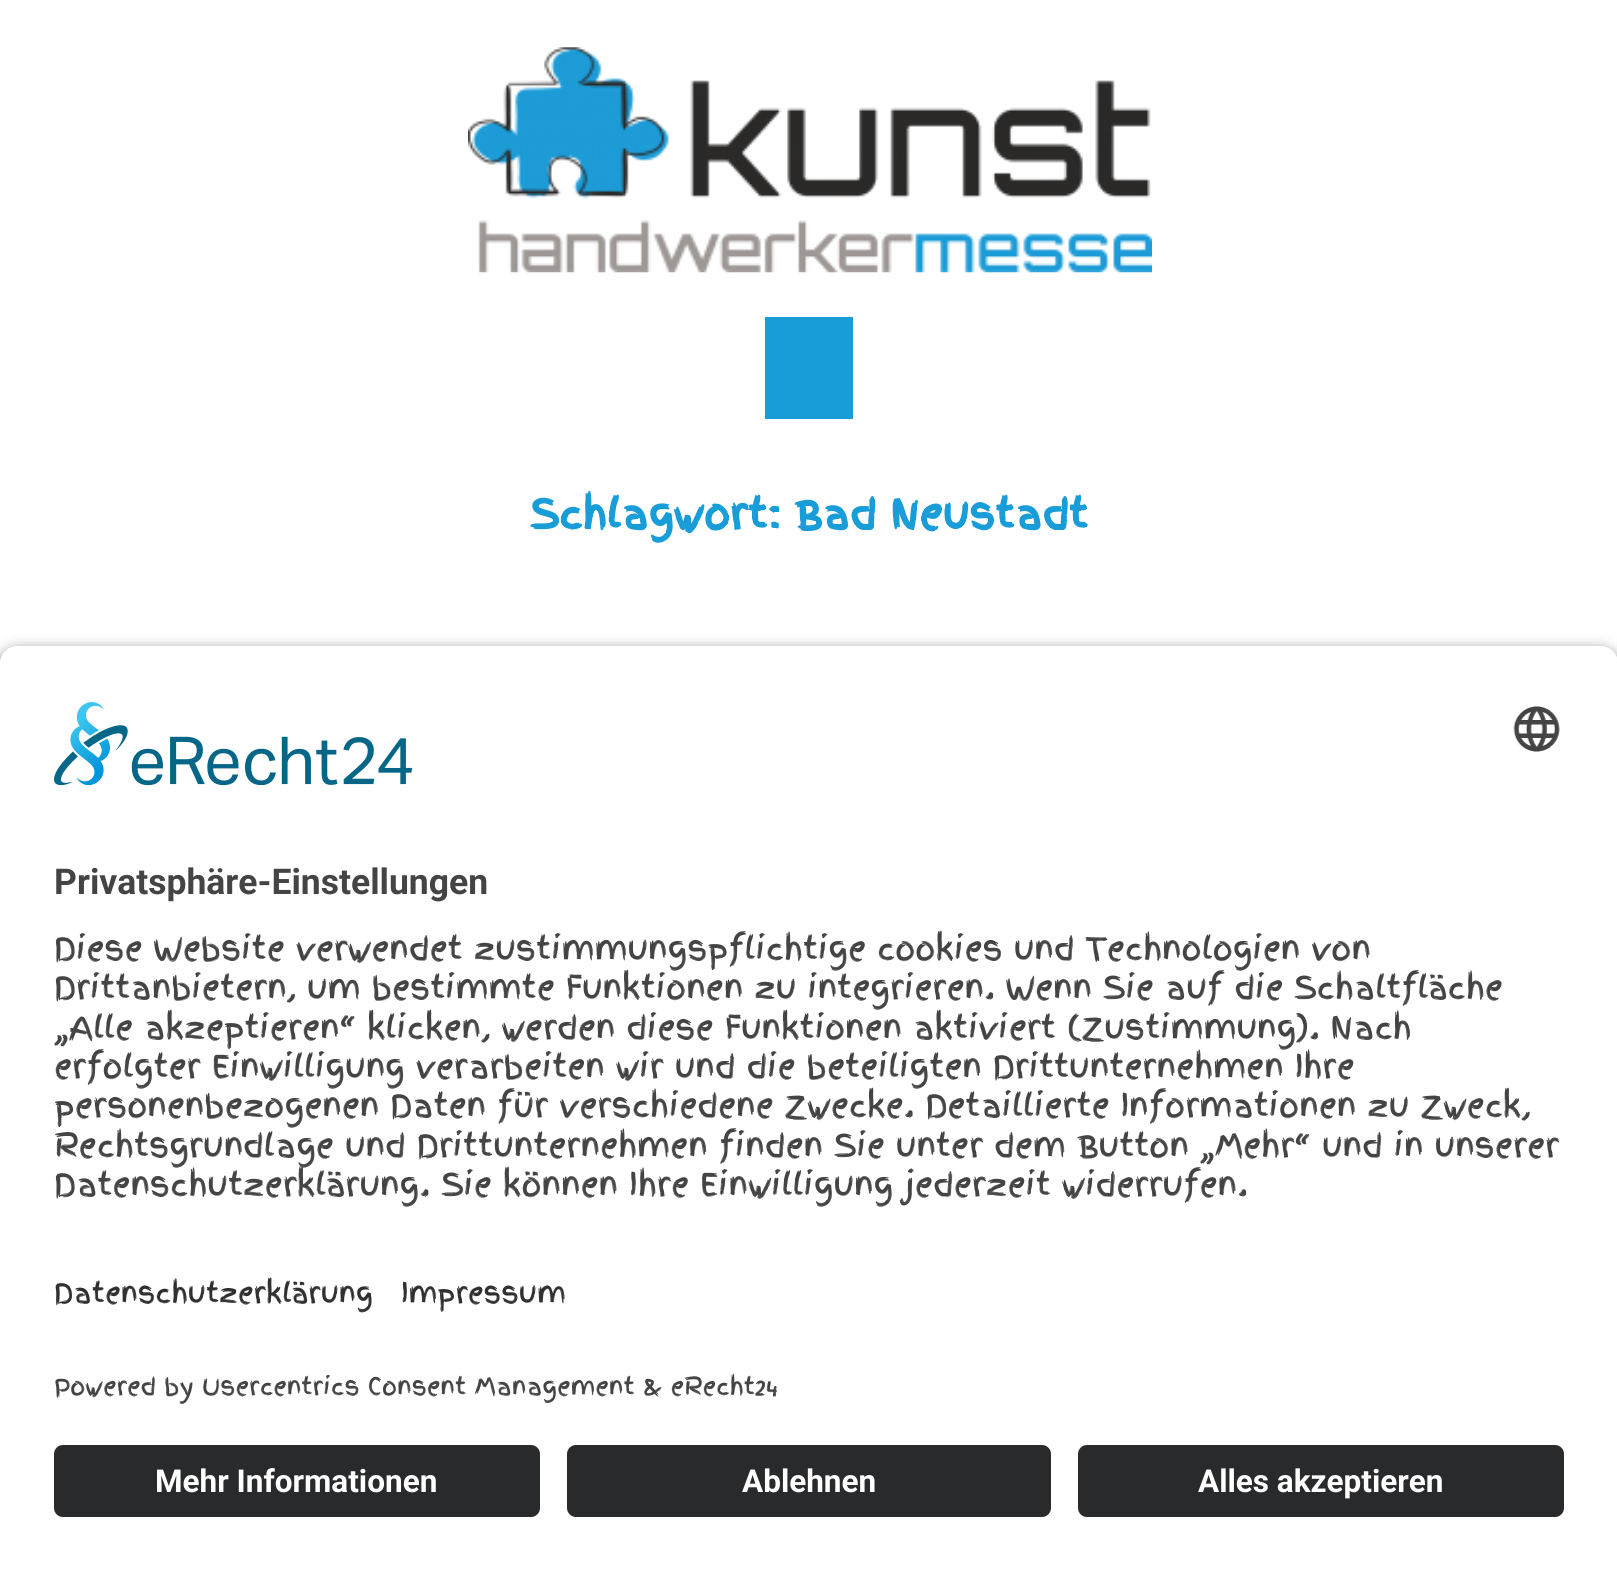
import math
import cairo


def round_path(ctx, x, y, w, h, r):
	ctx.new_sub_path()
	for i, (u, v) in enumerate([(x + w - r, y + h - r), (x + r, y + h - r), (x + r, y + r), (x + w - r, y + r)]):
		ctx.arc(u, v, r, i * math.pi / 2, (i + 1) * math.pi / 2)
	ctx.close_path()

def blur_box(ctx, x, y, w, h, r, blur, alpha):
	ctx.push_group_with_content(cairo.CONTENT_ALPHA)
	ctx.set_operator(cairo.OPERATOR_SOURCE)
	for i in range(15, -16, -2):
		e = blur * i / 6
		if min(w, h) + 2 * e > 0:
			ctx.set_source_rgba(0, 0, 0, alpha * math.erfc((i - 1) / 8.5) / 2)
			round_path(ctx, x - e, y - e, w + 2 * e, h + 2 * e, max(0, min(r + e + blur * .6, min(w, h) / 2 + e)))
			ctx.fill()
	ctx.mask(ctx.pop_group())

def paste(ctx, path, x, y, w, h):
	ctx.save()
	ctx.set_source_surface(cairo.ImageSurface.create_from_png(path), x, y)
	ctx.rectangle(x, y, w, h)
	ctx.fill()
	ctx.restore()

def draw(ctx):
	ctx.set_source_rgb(1, 1, 1)
	ctx.paint()
	paste(ctx, 'media/1.png', 468, 47, 684, 226)
	ctx.set_source_rgb(0.094, 0.616, 0.847)
	ctx.rectangle(765, 317, 88, 102)
	ctx.fill()
	ctx.select_font_face('Finger Paint', cairo.FONT_SLANT_NORMAL, cairo.FONT_WEIGHT_BOLD)
	ctx.set_font_size(40.5)
	ctx.move_to(530, 529)
	ctx.show_text('Schlagwort: Bad Neustadt')
	ctx.save()
	ctx.set_fill_rule(cairo.FILL_RULE_EVEN_ODD)
	ctx.new_path()
	ctx.move_to(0, 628)
	ctx.line_to(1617, 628)
	ctx.line_to(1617, 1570)
	ctx.line_to(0, 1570)
	ctx.close_path()
	ctx.move_to(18, 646)
	ctx.line_to(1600, 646)
	ctx.curve_to(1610, 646, 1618, 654, 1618, 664)
	ctx.line_to(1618, 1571)
	ctx.line_to(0, 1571)
	ctx.line_to(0, 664)
	ctx.curve_to(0, 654, 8, 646, 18, 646)
	ctx.close_path()
	ctx.clip()
	ctx.set_source_rgb(0, 0, 0)
	blur_box(ctx, 0, 653, 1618, 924, 18, 8, 0.8)
	ctx.restore()
	ctx.save()
	ctx.new_path()
	ctx.move_to(18, 646)
	ctx.line_to(1600, 646)
	ctx.curve_to(1610, 646, 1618, 654, 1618, 664)
	ctx.line_to(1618, 1215)
	ctx.line_to(0, 1215)
	ctx.line_to(0, 664)
	ctx.curve_to(0, 654, 8, 646, 18, 646)
	ctx.close_path()
	ctx.clip()
	ctx.set_source_rgb(1, 1, 1)
	ctx.rectangle(0, 648, 1617, 567)
	ctx.fill()
	ctx.restore()
	paste(ctx, 'media/2.png', 54, 702, 359, 84)
	paste(ctx, 'media/3.png', 1513, 706, 47, 46)
	ctx.select_font_face('Roboto', cairo.FONT_SLANT_NORMAL, cairo.FONT_WEIGHT_BOLD)
	ctx.set_font_size(35.5)
	ctx.set_source_rgb(0.267, 0.267, 0.267)
	ctx.move_to(54, 894)
	ctx.show_text('Privatsphäre-Einstellungen')
	ctx.select_font_face('Finger Paint')
	ctx.set_font_size(31.5)
	for x, y, s in [
		(54, 960, 'Diese Website verwendet zustimmungspflichtige cookies und Technologien von'),
		(54, 999, 'Drittanbietern, um bestimmte Funktionen zu integrieren. Wenn Sie auf die Schaltfläche'),
		(54, 1039, '„Alle akzeptieren“ klicken, werden diese Funktionen aktiviert (Zustimmung). Nach'),
		(54, 1078, 'erfolgter Einwilligung verarbeiten wir und die beteiligten Drittunternehmen Ihre'),
		(54, 1117, 'personenbezogenen Daten für verschiedene Zwecke. Detaillierte Informationen zu Zweck,'),
		(54, 1157, 'Rechtsgrundlage und Drittunternehmen finden Sie unter dem Button „Mehr“ und in unserer'),
		(54, 1196, 'Datenschutzerklärung. Sie können Ihre Einwilligung jederzeit widerrufen.'),
	]:
		ctx.move_to(x, y)
		ctx.show_text(s)
	ctx.set_font_size(27.5)
	ctx.set_source_rgb(0.188, 0.188, 0.188)
	ctx.move_to(54, 1303)
	ctx.show_text('Datenschutzerklärung')
	ctx.move_to(401, 1303)
	ctx.show_text('Impressum')
	ctx.set_font_size(23.6)
	ctx.set_source_rgb(0.267, 0.267, 0.267)
	ctx.move_to(54, 1395)
	ctx.show_text('Powered by Usercentrics Consent Management & eRecht24')
	ctx.set_source_rgb(0.161, 0.165, 0.169)
	round_path(ctx, 54, 1445, 486, 72, 9)
	ctx.fill()
	ctx.select_font_face('Roboto', cairo.FONT_SLANT_NORMAL, cairo.FONT_WEIGHT_BOLD)
	ctx.set_font_size(31.5)
	ctx.set_source_rgb(1, 1, 1)
	ctx.move_to(155, 1492)
	ctx.show_text('Mehr Informationen')
	ctx.set_source_rgb(0.161, 0.165, 0.169)
	round_path(ctx, 567, 1445, 484, 72, 9)
	ctx.fill()
	ctx.set_source_rgb(1, 1, 1)
	ctx.move_to(742, 1492)
	ctx.show_text('Ablehnen')
	ctx.set_source_rgb(0.161, 0.165, 0.169)
	round_path(ctx, 1078, 1445, 486, 72, 9)
	ctx.fill()
	ctx.set_source_rgb(1, 1, 1)
	ctx.move_to(1198, 1492)
	ctx.show_text('Alles akzeptieren')


surface = cairo.ImageSurface(cairo.FORMAT_RGB24, 1617, 1570)
ctx = cairo.Context(surface)
options = cairo.FontOptions()
options.set_hint_metrics(cairo.HINT_METRICS_OFF)
options.set_hint_style(cairo.HINT_STYLE_NONE)
ctx.set_font_options(options)
ctx.set_miter_limit(4)
draw(ctx)
surface.write_to_png('image.png')
